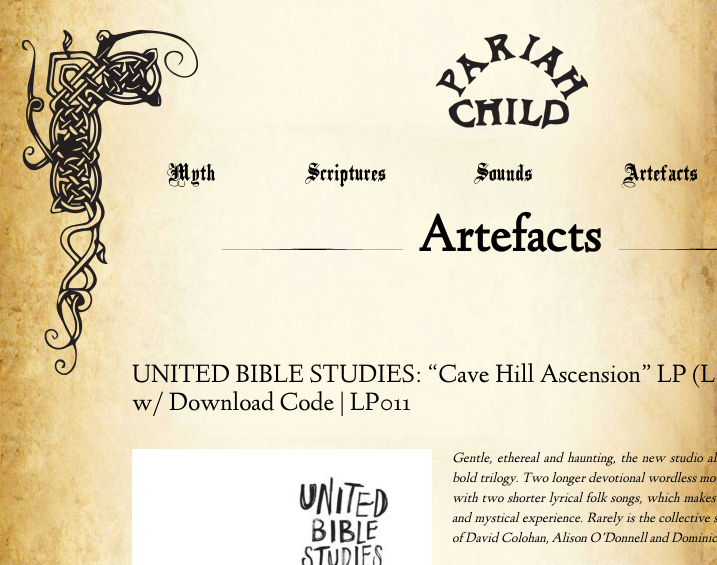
import math
import cairo


def write_spaced(ctx, x, y, s, letter, word):
	ctx.move_to(x, y)
	for ch in s:
		ctx.show_text(ch)
		ctx.rel_move_to(letter + word * (ch == ' '), 0)

def paste(ctx, path, x, y, w, h):
	ctx.save()
	ctx.set_source_surface(cairo.ImageSurface.create_from_png(path), x, y)
	ctx.rectangle(x, y, w, h)
	ctx.fill()
	ctx.restore()

def draw(ctx):
	ctx.set_source_rgb(1, 1, 1)
	ctx.paint()
	paste(ctx, 'media/1.png', 0, 564, 717, 1)
	paste(ctx, 'media/2.png', 0, 0, 717, 565)
	paste(ctx, 'media/3.png', 22, 30, 176, 345)
	paste(ctx, 'media/4.png', 436, 34, 152, 95)
	ctx.select_font_face('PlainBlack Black')
	ctx.set_font_size(20)
	ctx.set_source_rgb(0, 0, 0)
	for x, y, s in [
		(167, 181, 'Myth'),
		(305, 181, 'Scriptures'),
		(474, 181, 'Sounds'),
		(621, 181, 'Artefacts'),
	]:
		ctx.move_to(x, y)
		ctx.show_text(s)
	paste(ctx, 'media/5.png', 222, 248, 181, 2)
	ctx.select_font_face('Linden Hill', cairo.FONT_SLANT_NORMAL, cairo.FONT_WEIGHT_BOLD)
	ctx.set_font_size(52)
	ctx.move_to(418, 251)
	ctx.show_text('Artefacts')
	paste(ctx, 'media/6.png', 619, 248, 98, 2)
	ctx.select_font_face('Linden Hill')
	ctx.set_font_size(26)
	write_spaced(ctx, 132, 382, 'UNITED BIBLE STUDIES: “Cave Hill Ascension” LP (L', 0, 0.5)
	ctx.move_to(132, 410)
	ctx.show_text('w/ Download Code | LP011')
	paste(ctx, 'media/7.png', 132, 449, 300, 116)
	ctx.select_font_face('Linden Hill', cairo.FONT_SLANT_ITALIC)
	ctx.set_font_size(14)
	write_spaced(ctx, 452, 462, 'Gentle, ethereal and haunting, the new studio al', 0, 2)
	write_spaced(ctx, 452, 482, 'bold trilogy. Two longer devotional wordless mo', 0, 0.75)
	write_spaced(ctx, 452, 502, 'with two shorter lyrical folk songs, which makes', 0, 1.25)
	write_spaced(ctx, 452, 522, 'and mystical experience. Rarely is the collective s', 0, 1)
	ctx.move_to(452, 542)
	ctx.show_text('of David Colohan, Alison O’Donnell and Dominic')


surface = cairo.ImageSurface(cairo.FORMAT_RGB24, 717, 565)
ctx = cairo.Context(surface)
options = cairo.FontOptions()
options.set_hint_metrics(cairo.HINT_METRICS_OFF)
options.set_hint_style(cairo.HINT_STYLE_NONE)
ctx.set_font_options(options)
ctx.set_miter_limit(4)
draw(ctx)
surface.write_to_png('image.png')
